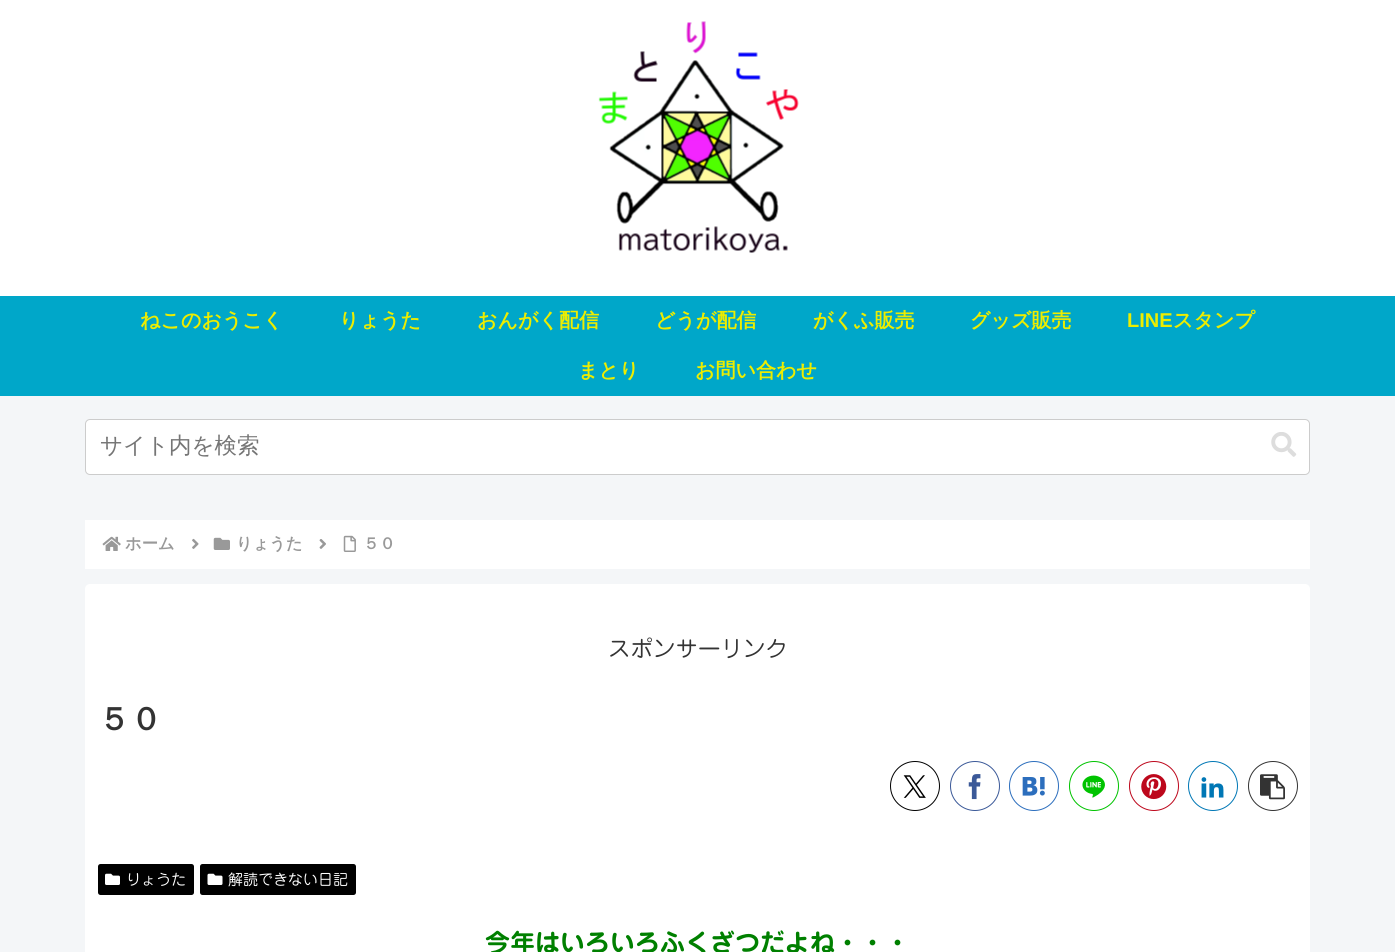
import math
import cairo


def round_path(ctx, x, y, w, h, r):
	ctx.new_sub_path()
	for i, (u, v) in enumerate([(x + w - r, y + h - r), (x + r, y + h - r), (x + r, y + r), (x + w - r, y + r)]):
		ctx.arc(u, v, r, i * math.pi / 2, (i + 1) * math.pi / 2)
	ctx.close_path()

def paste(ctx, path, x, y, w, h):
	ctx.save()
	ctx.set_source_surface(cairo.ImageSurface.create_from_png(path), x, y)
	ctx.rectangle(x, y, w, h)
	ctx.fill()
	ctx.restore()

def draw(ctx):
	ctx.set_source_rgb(0.957, 0.961, 0.969)
	ctx.paint()
	ctx.set_source_rgb(1, 1, 1)
	ctx.rectangle(0, 0, 1395, 296)
	ctx.fill()
	paste(ctx, 'media/1.png', 598, 21, 201, 232)
	ctx.set_source_rgb(0, 0.655, 0.788)
	ctx.rectangle(0, 296, 1395, 100)
	ctx.fill()
	ctx.select_font_face('WenQuanYi Zen Hei', cairo.FONT_SLANT_NORMAL, cairo.FONT_WEIGHT_BOLD)
	ctx.set_font_size(20)
	ctx.set_source_rgb(0.929, 0.929, 0)
	for x, y, s in [
		(140, 327, 'ねこのおうこく'),
		(339, 327, 'りょうた'),
		(477, 327, 'おんがく配信'),
		(655, 327, 'どうが配信'),
		(813, 327, 'がくふ販売'),
		(970, 327, 'グッズ販売'),
	]:
		ctx.move_to(x, y)
		ctx.show_text(s)
	ctx.select_font_face('Liberation Sans', cairo.FONT_SLANT_NORMAL, cairo.FONT_WEIGHT_BOLD)
	ctx.move_to(1127, 327)
	ctx.show_text('LINE')
	ctx.select_font_face('WenQuanYi Zen Hei', cairo.FONT_SLANT_NORMAL, cairo.FONT_WEIGHT_BOLD)
	for x, y, s in [
		(1173, 327, 'スタンプ'),
		(578, 377, 'まとり'),
		(695, 377, 'お問い合わせ'),
	]:
		ctx.move_to(x, y)
		ctx.show_text(s)
	ctx.set_source_rgb(1, 1, 1)
	round_path(ctx, 85.5, 419.5, 1224, 55, 4.5)
	ctx.fill_preserve()
	ctx.set_source_rgb(0.8, 0.8, 0.8)
	ctx.set_line_width(1)
	ctx.stroke()
	ctx.select_font_face('WenQuanYi Zen Hei Medium')
	ctx.set_font_size(22.5)
	ctx.set_source_rgb(0.459, 0.459, 0.459)
	ctx.move_to(100, 453)
	ctx.show_text('サイト内を検索')
	paste(ctx, 'media/2.png', 1271, 432, 26, 25)
	ctx.set_source_rgb(1, 1, 1)
	ctx.rectangle(85, 520, 1225, 49)
	ctx.fill()
	paste(ctx, 'media/3.png', 102, 536, 19, 15)
	ctx.select_font_face('WenQuanYi Zen Hei', cairo.FONT_SLANT_NORMAL, cairo.FONT_WEIGHT_BOLD)
	ctx.set_font_size(16.25)
	ctx.set_source_rgb(0.6, 0.6, 0.6)
	ctx.move_to(125, 549)
	ctx.show_text('ホーム')
	paste(ctx, 'media/4.png', 192, 538, 7, 11)
	paste(ctx, 'media/5.png', 213, 537, 17, 13)
	ctx.move_to(236, 549)
	ctx.show_text('りょうた')
	paste(ctx, 'media/6.png', 319, 539, 7, 10)
	paste(ctx, 'media/7.png', 343, 535, 13, 17)
	ctx.move_to(363, 549)
	ctx.show_text('５０')
	ctx.set_source_rgb(1, 1, 1)
	round_path(ctx, 85, 584, 1225, 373, 5)
	ctx.fill()
	ctx.select_font_face('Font')
	ctx.set_font_size(22.5)
	ctx.set_source_rgb(0.2, 0.2, 0.2)
	ctx.move_to(608, 657)
	ctx.show_text('スポンサーリンク')
	ctx.select_font_face('WenQuanYi Zen Hei', cairo.FONT_SLANT_NORMAL, cairo.FONT_WEIGHT_BOLD)
	ctx.set_font_size(32)
	ctx.move_to(98, 730)
	ctx.show_text('５０')
	ctx.new_path()
	ctx.arc(915, 786, 24.5, 0, 2 * math.pi)
	ctx.set_source_rgb(0, 0, 0)
	ctx.stroke()
	paste(ctx, 'media/8.png', 903, 775, 23, 23)
	ctx.arc(975, 786, 24.5, 0, 2 * math.pi)
	ctx.set_source_rgb(0.231, 0.349, 0.596)
	ctx.stroke()
	paste(ctx, 'media/9.png', 968, 774, 13, 26)
	ctx.arc(1034, 786, 24.5, 0, 2 * math.pi)
	ctx.set_source_rgb(0.173, 0.431, 0.741)
	ctx.stroke()
	paste(ctx, 'media/10.png', 1022, 777, 23, 19)
	ctx.arc(1094, 786, 24.5, 0, 2 * math.pi)
	ctx.set_source_rgb(0, 0.765, 0)
	ctx.stroke()
	paste(ctx, 'media/11.png', 1082, 775, 23, 23)
	ctx.arc(1154, 786, 24.5, 0, 2 * math.pi)
	ctx.set_source_rgb(0.741, 0.031, 0.11)
	ctx.stroke()
	paste(ctx, 'media/12.png', 1141, 774, 26, 26)
	ctx.arc(1213, 786, 24.5, 0, 2 * math.pi)
	ctx.set_source_rgb(0, 0.467, 0.71)
	ctx.stroke()
	paste(ctx, 'media/13.png', 1201, 777, 23, 21)
	ctx.arc(1273, 786, 24.5, 0, 2 * math.pi)
	ctx.set_source_rgb(0.2, 0.2, 0.2)
	ctx.stroke()
	paste(ctx, 'media/14.png', 1260, 774, 25, 26)
	ctx.set_source_rgb(0, 0, 0)
	round_path(ctx, 98, 864, 96, 31, 2.5)
	ctx.fill()
	paste(ctx, 'media/15.png', 105, 873, 15, 12)
	ctx.select_font_face('Font')
	ctx.set_font_size(15)
	ctx.set_source_rgb(1, 1, 1)
	ctx.move_to(126, 885)
	ctx.show_text('りょうた')
	ctx.set_source_rgb(0, 0, 0)
	round_path(ctx, 200, 864, 156, 31, 2.5)
	ctx.fill()
	paste(ctx, 'media/16.png', 207, 873, 16, 12)
	ctx.set_source_rgb(1, 1, 1)
	ctx.move_to(228, 885)
	ctx.show_text('解読できない日記')
	ctx.select_font_face('Font SemiBold')
	ctx.set_font_size(25)
	ctx.set_source_rgb(0, 0.502, 0)
	ctx.move_to(485, 952)
	ctx.show_text('今年はいろいろふくざつだよね・・・')


surface = cairo.ImageSurface(cairo.FORMAT_RGB24, 1395, 952)
ctx = cairo.Context(surface)
options = cairo.FontOptions()
options.set_hint_metrics(cairo.HINT_METRICS_OFF)
options.set_hint_style(cairo.HINT_STYLE_NONE)
ctx.set_font_options(options)
ctx.set_miter_limit(4)
draw(ctx)
surface.write_to_png('image.png')
